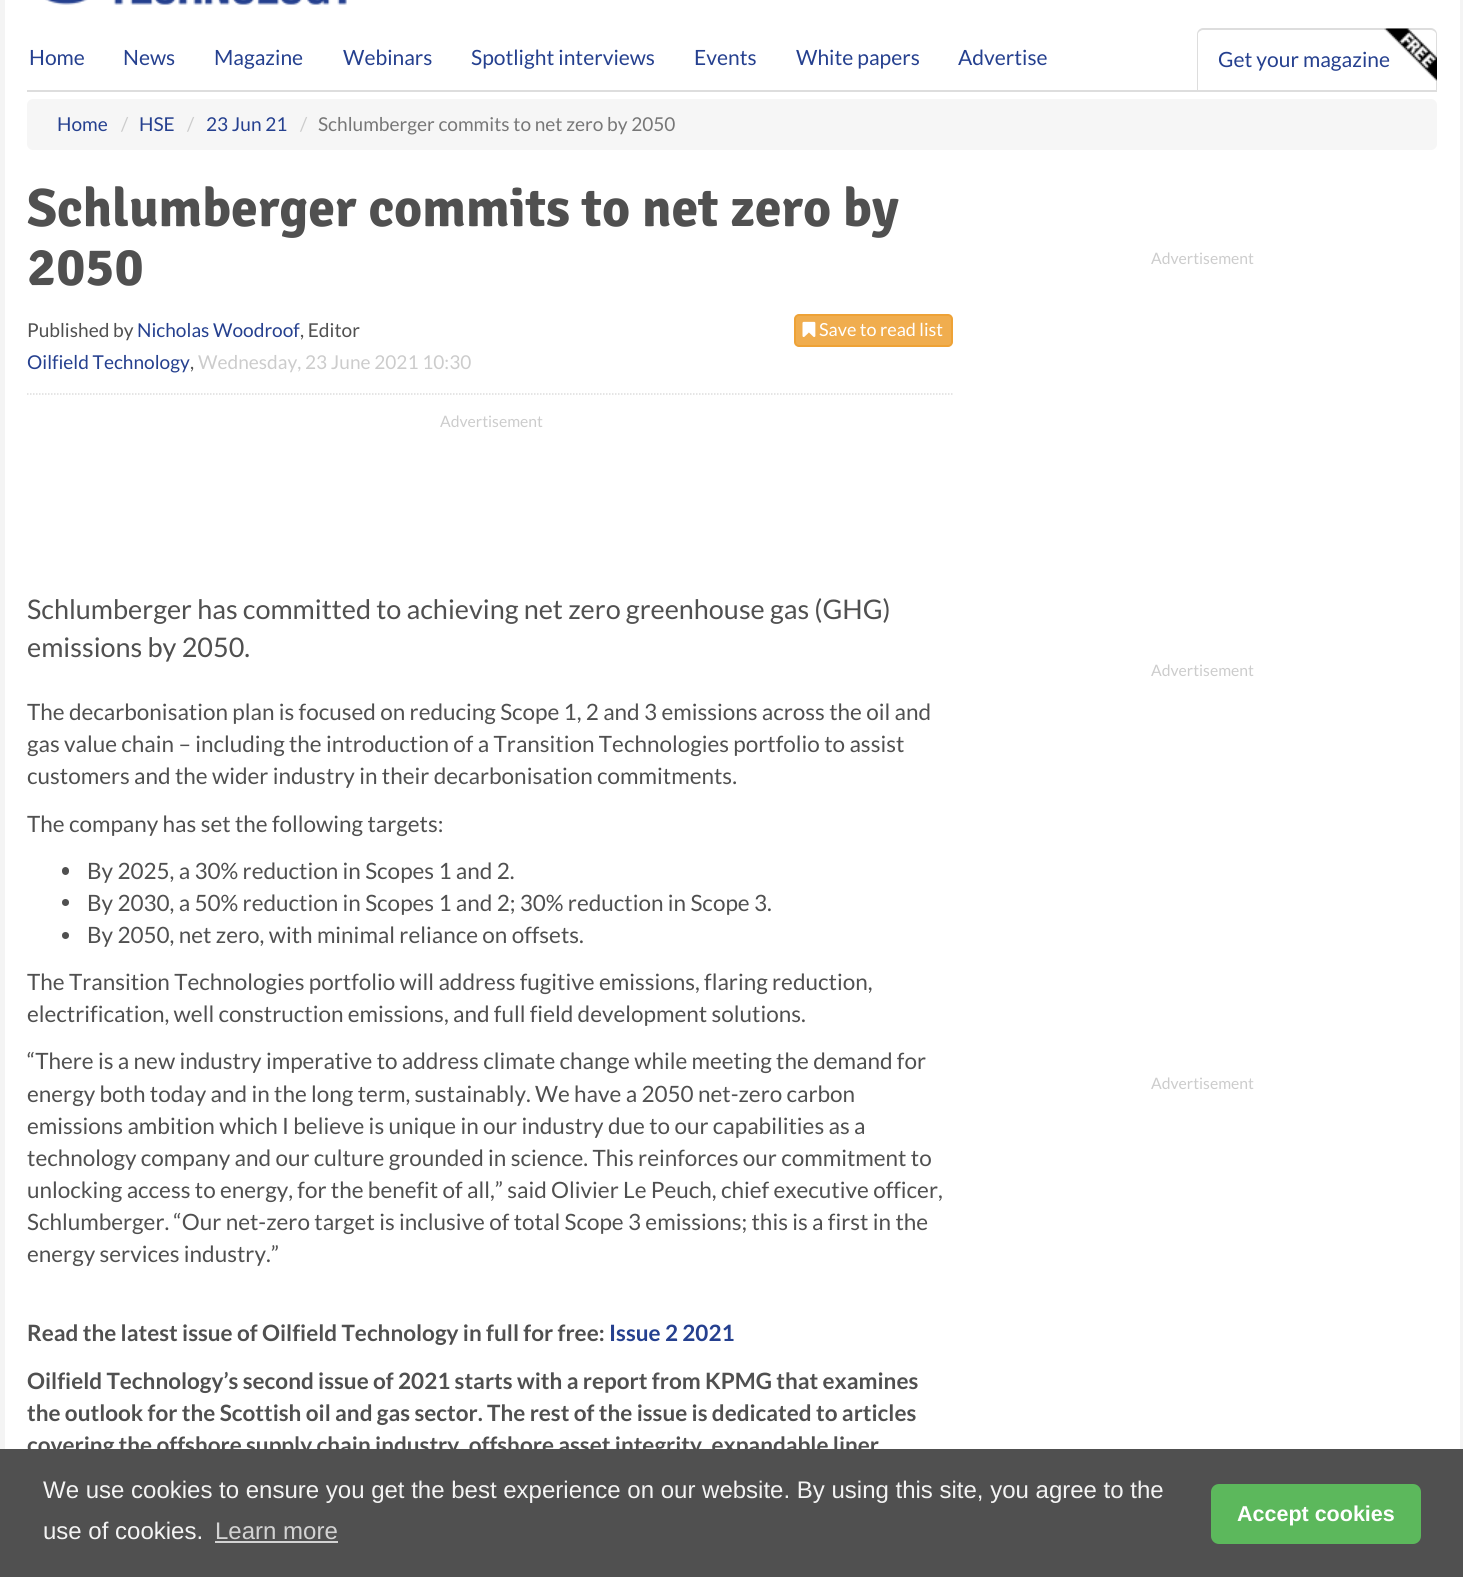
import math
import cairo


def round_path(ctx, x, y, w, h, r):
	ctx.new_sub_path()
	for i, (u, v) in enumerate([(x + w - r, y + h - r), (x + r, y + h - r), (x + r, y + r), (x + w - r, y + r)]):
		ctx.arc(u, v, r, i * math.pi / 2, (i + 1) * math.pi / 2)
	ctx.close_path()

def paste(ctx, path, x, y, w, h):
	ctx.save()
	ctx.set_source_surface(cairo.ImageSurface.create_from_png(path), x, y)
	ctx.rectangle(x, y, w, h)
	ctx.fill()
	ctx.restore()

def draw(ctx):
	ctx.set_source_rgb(0.957, 0.957, 0.957)
	ctx.paint()
	ctx.set_source_rgb(1, 1, 1)
	ctx.rectangle(5, 0, 1455, 29)
	ctx.fill()
	paste(ctx, 'media/1.png', 45, 0, 302, 5)
	ctx.rectangle(5, 29, 1455, 151)
	ctx.fill()
	ctx.set_source_rgb(0.867, 0.867, 0.867)
	ctx.rectangle(27, 90, 1410, 2)
	ctx.fill()
	ctx.select_font_face('Lato')
	ctx.set_font_size(21)
	ctx.set_source_rgb(0.145, 0.251, 0.561)
	for x, y, s in [
		(29, 65, 'Home'),
		(123, 65, 'News'),
		(214, 65, 'Magazine'),
		(343, 65, 'Webinars'),
		(471, 65, 'Spotlight interviews'),
		(694, 65, 'Events'),
		(796, 65, 'White papers'),
		(958, 65, 'Advertise'),
	]:
		ctx.move_to(x, y)
		ctx.show_text(s)
	ctx.set_source_rgb(0.867, 0.867, 0.867)
	ctx.set_fill_rule(cairo.FILL_RULE_EVEN_ODD)
	ctx.new_path()
	ctx.move_to(1203, 28)
	ctx.line_to(1431, 28)
	ctx.curve_to(1434, 28, 1437, 31, 1437, 34)
	ctx.line_to(1437, 90)
	ctx.line_to(1197, 90)
	ctx.line_to(1197, 34)
	ctx.curve_to(1197, 31, 1200, 28, 1203, 28)
	ctx.close_path()
	ctx.move_to(1203, 30)
	ctx.line_to(1431, 30)
	ctx.curve_to(1433, 30, 1436, 32, 1436, 34)
	ctx.line_to(1436, 90)
	ctx.line_to(1198, 90)
	ctx.line_to(1198, 34)
	ctx.curve_to(1198, 32, 1201, 30, 1203, 30)
	ctx.close_path()
	ctx.fill()
	ctx.set_source_rgb(0.145, 0.251, 0.561)
	ctx.move_to(1218, 67)
	ctx.show_text('Get your magazine')
	paste(ctx, 'media/2.png', 1384, 28, 53, 53)
	ctx.set_source_rgb(0.961, 0.961, 0.961)
	round_path(ctx, 27, 99, 1410, 51, 6)
	ctx.fill()
	ctx.set_font_size(19.1)
	ctx.set_source_rgb(0.145, 0.251, 0.561)
	ctx.move_to(57, 131)
	ctx.show_text('Home')
	ctx.set_source_rgb(0.8, 0.8, 0.8)
	ctx.move_to(121, 131)
	ctx.show_text('/')
	ctx.set_source_rgb(0.145, 0.251, 0.561)
	ctx.move_to(139, 131)
	ctx.show_text('HSE')
	ctx.set_source_rgb(0.8, 0.8, 0.8)
	ctx.move_to(187, 131)
	ctx.show_text('/')
	ctx.set_source_rgb(0.145, 0.251, 0.561)
	ctx.move_to(206, 131)
	ctx.show_text('23 Jun 21')
	ctx.set_source_rgb(0.8, 0.8, 0.8)
	ctx.move_to(300, 131)
	ctx.show_text('/')
	ctx.set_source_rgb(0.467, 0.467, 0.467)
	ctx.move_to(318, 131)
	ctx.show_text('Schlumberger commits to net zero by 2050')
	ctx.set_source_rgb(1, 1, 1)
	round_path(ctx, 5, 174, 1455, 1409, 6)
	ctx.fill()
	ctx.select_font_face('Signika', cairo.FONT_SLANT_NORMAL, cairo.FONT_WEIGHT_BOLD)
	ctx.set_font_size(54)
	ctx.set_source_rgb(0.314, 0.314, 0.314)
	ctx.move_to(27, 226)
	ctx.show_text('Schlumberger commits to net zero by')
	ctx.move_to(27, 285)
	ctx.show_text('2050')
	ctx.select_font_face('Lato')
	ctx.set_font_size(19.1)
	ctx.move_to(27, 337)
	ctx.show_text('Published by')
	ctx.set_source_rgb(0.145, 0.251, 0.561)
	ctx.move_to(137, 337)
	ctx.show_text('Nicholas Woodroof')
	ctx.set_source_rgb(0.314, 0.314, 0.314)
	ctx.move_to(300, 337)
	ctx.show_text(', Editor')
	ctx.set_source_rgb(0.941, 0.678, 0.306)
	round_path(ctx, 795, 315, 157, 31, 4)
	ctx.fill_preserve()
	ctx.set_source_rgb(0.933, 0.635, 0.212)
	ctx.stroke()
	paste(ctx, 'media/3.png', 802, 321, 14, 16)
	ctx.set_font_size(18)
	ctx.set_source_rgb(1, 1, 1)
	ctx.move_to(819, 336)
	ctx.show_text('Save to read list')
	ctx.set_font_size(19.1)
	ctx.set_source_rgb(0.145, 0.251, 0.561)
	ctx.move_to(27, 369)
	ctx.show_text('Oilfield Technology')
	ctx.set_source_rgb(0.314, 0.314, 0.314)
	ctx.move_to(190, 369)
	ctx.show_text(',')
	ctx.set_source_rgb(0.8, 0.8, 0.8)
	ctx.move_to(198, 369)
	ctx.show_text('Wednesday, 23 June 2021 10:30')
	ctx.new_path()
	ctx.move_to(27, 394)
	ctx.line_to(952.5, 394)
	ctx.set_source_rgb(0.867, 0.867, 0.867)
	ctx.set_line_width(1.5)
	ctx.set_dash([1.5, 1.5])
	ctx.stroke()
	ctx.set_font_size(15.75)
	ctx.set_source_rgb(0.8, 0.8, 0.8)
	ctx.move_to(440, 427)
	ctx.show_text('Advertisement')
	ctx.set_font_size(27)
	ctx.set_source_rgb(0.314, 0.314, 0.314)
	ctx.move_to(27, 619)
	ctx.show_text('Schlumberger has committed to achieving net zero greenhouse gas (GHG)')
	ctx.move_to(27, 657)
	ctx.show_text('emissions by 2050.')
	ctx.set_font_size(22.5)
	for x, y, s in [
		(27, 720, 'The decarbonisation plan is focused on reducing Scope 1, 2 and 3 emissions across the oil and'),
		(27, 752, 'gas value chain – including the introduction of a Transition Technologies portfolio to assist'),
		(27, 784, 'customers and the wider industry in their decarbonisation commitments.'),
		(27, 832, 'The company has set the following targets:'),
	]:
		ctx.move_to(x, y)
		ctx.show_text(s)
	round_path(ctx, 62, 867, 7, 8, 3.5)
	ctx.fill()
	ctx.move_to(87, 879)
	ctx.show_text('By 2025, a 30% reduction in Scopes 1 and 2.')
	ctx.new_path()
	ctx.arc(65.5, 902.5, 3.5, 0, 2 * math.pi)
	ctx.fill()
	ctx.move_to(87, 911)
	ctx.show_text('By 2030, a 50% reduction in Scopes 1 and 2; 30% reduction in Scope 3.')
	ctx.new_path()
	ctx.arc(65.5, 935.5, 3.5, 0, 2 * math.pi)
	ctx.fill()
	for x, y, s in [
		(87, 943, 'By 2050, net zero, with minimal reliance on offsets.'),
		(27, 990, 'The Transition Technologies portfolio will address fugitive emissions, flaring reduction,'),
		(27, 1022, 'electrification, well construction emissions, and full field development solutions.'),
		(27, 1069, '“There is a new industry imperative to address climate change while meeting the demand for'),
		(27, 1102, 'energy both today and in the long term, sustainably. We have a 2050 net-zero carbon'),
		(27, 1134, 'emissions ambition which I believe is unique in our industry due to our capabilities as a'),
		(27, 1166, 'technology company and our culture grounded in science. This reinforces our commitment to'),
		(27, 1198, 'unlocking access to energy, for the benefit of all,” said Olivier Le Peuch, chief executive officer,'),
		(27, 1230, 'Schlumberger. “Our net-zero target is inclusive of total Scope 3 emissions; this is a first in the'),
		(27, 1262, 'energy services industry.”'),
	]:
		ctx.move_to(x, y)
		ctx.show_text(s)
	ctx.select_font_face('Lato', cairo.FONT_SLANT_NORMAL, cairo.FONT_WEIGHT_BOLD)
	ctx.move_to(27, 1341)
	ctx.show_text('Read the latest issue of Oilfield Technology in full for free:')
	ctx.set_source_rgb(0.145, 0.251, 0.561)
	ctx.move_to(609, 1341)
	ctx.show_text('Issue 2 2021')
	ctx.set_source_rgb(0.314, 0.314, 0.314)
	for x, y, s in [
		(27, 1389, 'Oilfield Technology’s second issue of 2021 starts with a report from KPMG that examines'),
		(27, 1421, 'the outlook for the Scottish oil and gas sector. The rest of the issue is dedicated to articles'),
		(27, 1453, 'covering the offshore supply chain industry, offshore asset integrity, expandable liner'),
	]:
		ctx.move_to(x, y)
		ctx.show_text(s)
	ctx.select_font_face('Lato')
	ctx.set_font_size(15.75)
	ctx.set_source_rgb(0.8, 0.8, 0.8)
	for x, y, s in [
		(1151, 264, 'Advertisement'),
		(1151, 676, 'Advertisement'),
		(1151, 1089, 'Advertisement'),
	]:
		ctx.move_to(x, y)
		ctx.show_text(s)
	ctx.set_source_rgb(0.314, 0.314, 0.314)
	ctx.rectangle(0, 1449, 1463, 128)
	ctx.fill()
	ctx.select_font_face('Liberation Sans')
	ctx.set_font_size(24)
	ctx.set_source_rgb(0.957, 0.957, 0.957)
	ctx.move_to(43, 1498)
	ctx.show_text('We use cookies to ensure you get the best experience on our website. By using this site, you agree to the')
	ctx.move_to(43, 1539)
	ctx.show_text('use of cookies.')
	ctx.set_source_rgb(0.827, 0.827, 0.827)
	ctx.move_to(215, 1539)
	ctx.show_text('Learn more')
	ctx.rectangle(215, 1541, 123, 2)
	ctx.fill()
	ctx.set_source_rgb(0.361, 0.722, 0.361)
	round_path(ctx, 1211, 1484, 210, 60, 8)
	ctx.fill()
	ctx.select_font_face('Liberation Sans', cairo.FONT_SLANT_NORMAL, cairo.FONT_WEIGHT_BOLD)
	ctx.set_font_size(21.5)
	ctx.set_source_rgb(1, 1, 1)
	ctx.move_to(1237, 1521)
	ctx.show_text('Accept cookies')


surface = cairo.ImageSurface(cairo.FORMAT_RGB24, 1463, 1577)
ctx = cairo.Context(surface)
options = cairo.FontOptions()
options.set_hint_metrics(cairo.HINT_METRICS_OFF)
options.set_hint_style(cairo.HINT_STYLE_NONE)
ctx.set_font_options(options)
ctx.set_miter_limit(4)
draw(ctx)
surface.write_to_png('image.png')
